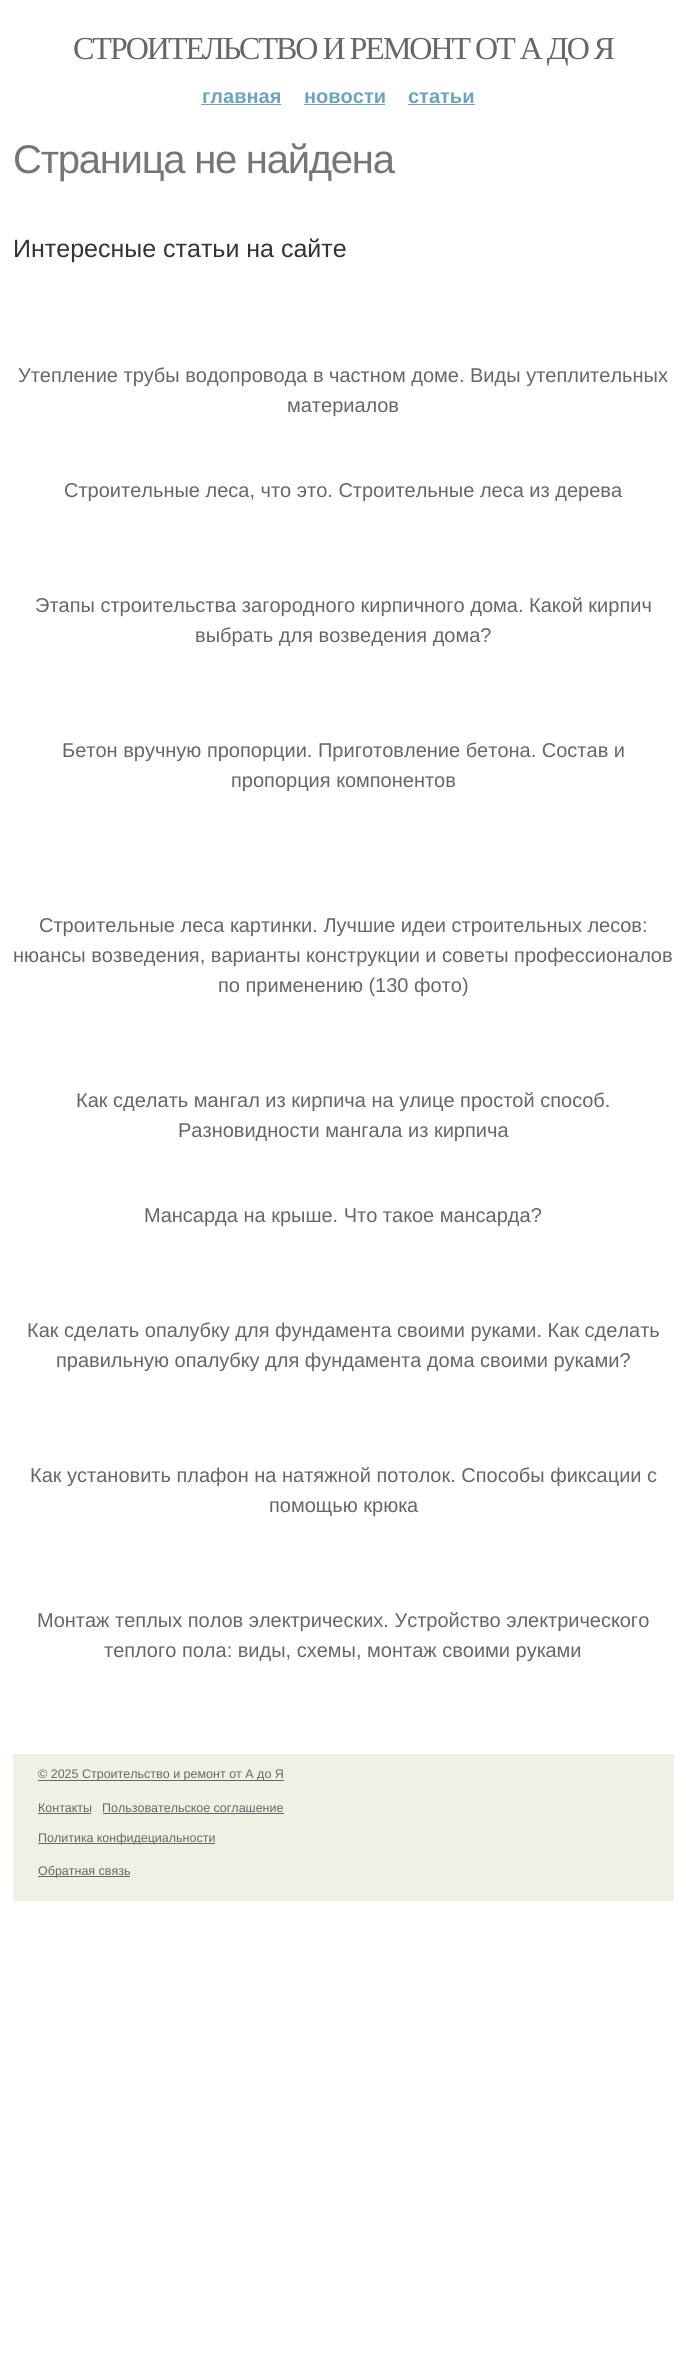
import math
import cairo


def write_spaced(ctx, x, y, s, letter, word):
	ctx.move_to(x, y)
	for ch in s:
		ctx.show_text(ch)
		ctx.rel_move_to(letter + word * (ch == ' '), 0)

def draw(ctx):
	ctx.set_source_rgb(1, 1, 1)
	ctx.paint()
	ctx.select_font_face('Liberation Serif')
	ctx.set_font_size(32)
	ctx.set_source_rgb(0.4, 0.4, 0.4)
	write_spaced(ctx, 73, 59, 'СТРОИТЕЛЬСТВО И РЕМОНТ ОТ А ДО Я', -2, 0)
	ctx.select_font_face('Liberation Sans', cairo.FONT_SLANT_NORMAL, cairo.FONT_WEIGHT_BOLD)
	ctx.set_font_size(20)
	ctx.set_source_rgb(0.427, 0.639, 0.741)
	ctx.move_to(202, 103)
	ctx.show_text('главная')
	ctx.rectangle(201, 104, 80, 1)
	ctx.fill()
	ctx.move_to(304, 103)
	ctx.show_text('новости')
	ctx.rectangle(304, 104, 81, 1)
	ctx.fill()
	ctx.move_to(408, 103)
	ctx.show_text('статьи')
	ctx.rectangle(408, 104, 67, 1)
	ctx.fill()
	ctx.select_font_face('Liberation Sans')
	ctx.set_font_size(40)
	ctx.set_source_rgb(0.463, 0.463, 0.463)
	write_spaced(ctx, 13, 173, 'Страница не найдена', -1.25, 0)
	ctx.set_font_size(25)
	ctx.set_source_rgb(0.2, 0.2, 0.2)
	ctx.move_to(13, 257)
	ctx.show_text('Интересные статьи на сайте')
	ctx.set_font_size(20)
	ctx.set_source_rgb(0.4, 0.4, 0.4)
	for x, y, s in [
		(18, 382, 'Утепление трубы водопровода в частном доме. Виды утеплительных'),
		(287, 412, 'материалов'),
		(64, 497, 'Строительные леса, что это. Строительные леса из дерева'),
		(35, 612, 'Этапы строительства загородного кирпичного дома. Какой кирпич'),
		(195, 642, 'выбрать для возведения дома?'),
		(62, 757, 'Бетон вручную пропорции. Приготовление бетона. Состав и'),
		(231, 787, 'пропорция компонентов'),
		(39, 932, 'Строительные леса картинки. Лучшие идеи строительных лесов:'),
		(13, 962, 'нюансы возведения, варианты конструкции и советы профессионалов'),
		(218, 992, 'по применению (130 фото)'),
		(76, 1107, 'Как сделать мангал из кирпича на улице простой способ.'),
		(178, 1137, 'Разновидности мангала из кирпича'),
		(144, 1222, 'Мансарда на крыше. Что такое мансарда?'),
		(27, 1337, 'Как сделать опалубку для фундамента своими руками. Как сделать'),
		(56, 1367, 'правильную опалубку для фундамента дома своими руками?'),
		(30, 1482, 'Как установить плафон на натяжной потолок. Способы фиксации с'),
		(269, 1512, 'помощью крюка'),
		(37, 1627, 'Монтаж теплых полов электрических. Устройство электрического'),
		(104, 1657, 'теплого пола: виды, схемы, монтаж своими руками'),
	]:
		ctx.move_to(x, y)
		ctx.show_text(s)
	ctx.set_source_rgb(0.941, 0.941, 0.906)
	ctx.rectangle(13, 1754, 661, 147)
	ctx.fill()
	ctx.set_source_rgb(0.4, 0.4, 0.4)
	ctx.rectangle(38, 1780, 246, 1)
	ctx.fill()
	ctx.set_font_size(12.5)
	ctx.move_to(38, 1778)
	ctx.show_text('© 2025 Строительство и ремонт от А до Я')
	ctx.move_to(38, 1812)
	ctx.show_text('Контакты')
	ctx.rectangle(38, 1813, 53, 1)
	ctx.fill()
	ctx.move_to(102, 1812)
	ctx.show_text('Пользовательское соглашение')
	ctx.rectangle(103, 1813, 181, 1)
	ctx.fill()
	ctx.rectangle(38, 1843, 177, 1)
	ctx.fill()
	ctx.move_to(38, 1842)
	ctx.show_text('Политика конфидециальности')
	ctx.rectangle(38, 1876, 92, 1)
	ctx.fill()
	ctx.move_to(38, 1875)
	ctx.show_text('Обратная связь')


surface = cairo.ImageSurface(cairo.FORMAT_RGB24, 686, 2360)
ctx = cairo.Context(surface)
options = cairo.FontOptions()
options.set_hint_metrics(cairo.HINT_METRICS_OFF)
options.set_hint_style(cairo.HINT_STYLE_NONE)
ctx.set_font_options(options)
ctx.set_miter_limit(4)
draw(ctx)
surface.write_to_png('image.png')
